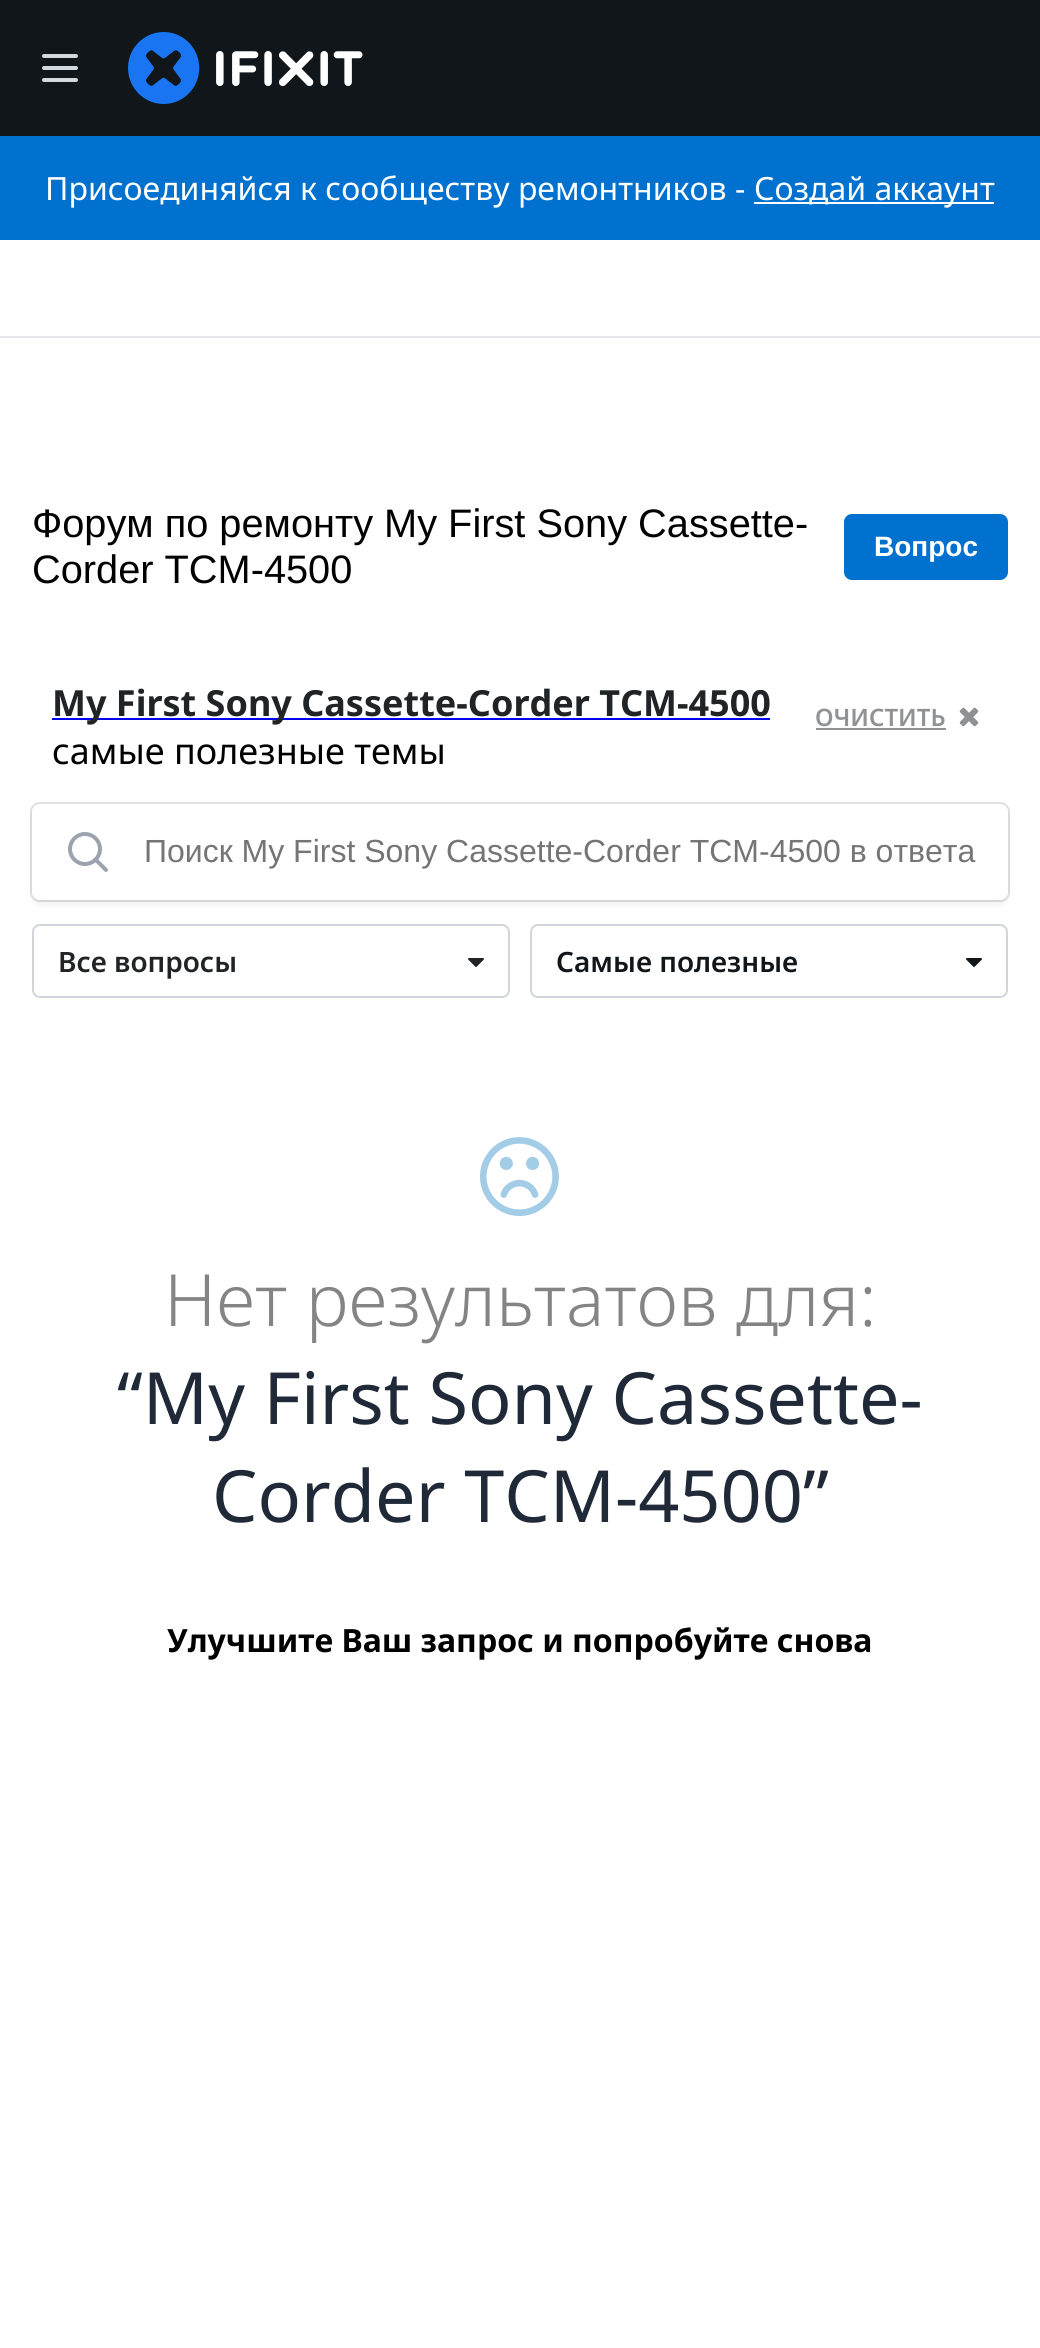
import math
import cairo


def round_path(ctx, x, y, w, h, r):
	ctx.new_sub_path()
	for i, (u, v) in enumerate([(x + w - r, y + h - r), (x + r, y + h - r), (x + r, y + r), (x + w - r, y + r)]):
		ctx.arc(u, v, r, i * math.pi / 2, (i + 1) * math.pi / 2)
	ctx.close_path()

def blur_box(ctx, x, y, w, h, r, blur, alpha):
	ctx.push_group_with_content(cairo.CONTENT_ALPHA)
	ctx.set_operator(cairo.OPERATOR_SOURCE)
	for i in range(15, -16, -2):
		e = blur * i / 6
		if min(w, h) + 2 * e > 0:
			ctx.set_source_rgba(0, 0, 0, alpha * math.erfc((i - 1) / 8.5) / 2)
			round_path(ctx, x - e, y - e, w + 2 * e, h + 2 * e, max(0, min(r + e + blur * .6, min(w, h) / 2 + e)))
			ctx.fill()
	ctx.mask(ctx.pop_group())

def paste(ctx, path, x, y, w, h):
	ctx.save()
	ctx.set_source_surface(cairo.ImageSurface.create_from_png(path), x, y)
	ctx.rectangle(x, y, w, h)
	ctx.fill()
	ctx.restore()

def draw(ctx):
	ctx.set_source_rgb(1, 1, 1)
	ctx.paint()
	ctx.set_source_rgb(0.067, 0.086, 0.102)
	ctx.rectangle(0, 0, 1040, 136)
	ctx.fill()
	ctx.new_path()
	ctx.move_to(44, 68)
	ctx.line_to(76, 68)
	ctx.move_to(44, 56)
	ctx.line_to(76, 56)
	ctx.move_to(44, 80)
	ctx.line_to(76, 80)
	ctx.set_source_rgb(0.824, 0.855, 0.875)
	ctx.set_line_width(4)
	ctx.set_line_cap(cairo.LINE_CAP_ROUND)
	ctx.set_line_join(cairo.LINE_JOIN_ROUND)
	ctx.stroke()
	paste(ctx, 'media/1.png', 128, 32, 235, 72)
	ctx.set_source_rgb(0, 0.443, 0.808)
	ctx.rectangle(0, 136, 1040, 104)
	ctx.fill()
	ctx.select_font_face('Noto Sans')
	ctx.set_font_size(32)
	ctx.set_source_rgb(1, 1, 1)
	ctx.move_to(45, 200)
	ctx.show_text('Присоединяйся к сообществу ремонтников -')
	ctx.rectangle(754, 202, 240, 2)
	ctx.fill()
	ctx.move_to(754, 200)
	ctx.show_text('Создай аккаунт')
	ctx.set_source_rgb(0.898, 0.906, 0.922)
	ctx.rectangle(0, 336, 1040, 2)
	ctx.fill()
	ctx.select_font_face('Liberation Sans')
	ctx.set_font_size(39.75)
	ctx.set_source_rgb(0, 0, 0)
	ctx.move_to(32, 537)
	ctx.show_text('Форум по ремонту My First Sony Cassette-')
	ctx.move_to(32, 583)
	ctx.show_text('Corder TCM-4500')
	ctx.set_source_rgb(0, 0.443, 0.808)
	round_path(ctx, 845, 515, 162, 64, 7)
	ctx.fill_preserve()
	ctx.set_line_width(2)
	ctx.set_line_cap(cairo.LINE_CAP_BUTT)
	ctx.set_line_join(cairo.LINE_JOIN_MITER)
	ctx.stroke()
	ctx.select_font_face('Liberation Sans', cairo.FONT_SLANT_NORMAL, cairo.FONT_WEIGHT_BOLD)
	ctx.set_font_size(28)
	ctx.set_source_rgb(1, 1, 1)
	ctx.move_to(874, 556)
	ctx.show_text('Вопрос')
	ctx.set_source_rgb(0, 0, 0.933)
	ctx.rectangle(52, 718, 718, 2)
	ctx.fill()
	ctx.select_font_face('Noto Sans', cairo.FONT_SLANT_NORMAL, cairo.FONT_WEIGHT_BOLD)
	ctx.set_font_size(36)
	ctx.set_source_rgb(0.129, 0.141, 0.149)
	ctx.move_to(52, 716)
	ctx.show_text('My First Sony Cassette-Corder TCM-4500')
	ctx.select_font_face('Noto Sans')
	ctx.set_source_rgb(0, 0, 0)
	ctx.move_to(52, 764)
	ctx.show_text('самые полезные темы')
	ctx.select_font_face('Noto Sans SemiBold')
	ctx.set_font_size(24)
	ctx.set_source_rgb(0.565, 0.573, 0.576)
	ctx.move_to(815, 726)
	ctx.show_text('ОЧИСТИТЬ')
	ctx.rectangle(816, 728, 130, 2)
	ctx.fill()
	paste(ctx, 'media/2.png', 959, 707, 20, 20)
	ctx.set_source_rgb(0, 0.012, 0.024)
	blur_box(ctx, 32, 808, 976, 96, 8, 4, 0.07)
	round_path(ctx, 31, 803, 978, 98, 9)
	ctx.set_source_rgba(0, 0.012, 0.024, 0.12)
	ctx.stroke()
	ctx.set_source_rgb(1, 1, 1)
	round_path(ctx, 32, 804, 976, 96, 8)
	ctx.fill()
	ctx.arc(85, 849, 15, 0, 2 * math.pi)
	ctx.set_source_rgb(0.612, 0.639, 0.686)
	ctx.set_line_width(4)
	ctx.stroke()
	ctx.new_path()
	ctx.move_to(106, 870)
	ctx.line_to(95.5, 859.5)
	ctx.set_line_cap(cairo.LINE_CAP_ROUND)
	ctx.set_line_join(cairo.LINE_JOIN_ROUND)
	ctx.stroke()
	ctx.select_font_face('Liberation Sans')
	ctx.set_font_size(32)
	ctx.set_source_rgb(0.459, 0.459, 0.459)
	ctx.move_to(144, 862)
	ctx.show_text('Поиск My First Sony Cassette-Corder TCM-4500 в ответа')
	round_path(ctx, 33, 925, 476, 72, 7)
	ctx.set_source_rgb(0.82, 0.835, 0.859)
	ctx.set_line_width(2)
	ctx.set_line_cap(cairo.LINE_CAP_BUTT)
	ctx.set_line_join(cairo.LINE_JOIN_MITER)
	ctx.stroke()
	ctx.select_font_face('Noto Sans SemiBold')
	ctx.set_font_size(28)
	ctx.set_source_rgb(0.129, 0.141, 0.149)
	ctx.move_to(58, 972)
	ctx.show_text('Все вопросы')
	paste(ctx, 'media/3.png', 468, 958, 16, 9)
	round_path(ctx, 531, 925, 476, 72, 7)
	ctx.set_source_rgb(0.82, 0.835, 0.859)
	ctx.stroke()
	ctx.set_source_rgb(0.067, 0.086, 0.102)
	ctx.move_to(556, 972)
	ctx.show_text('Самые полезные')
	paste(ctx, 'media/4.png', 966, 958, 16, 9)
	paste(ctx, 'media/5.png', 480, 1137, 79, 79)
	ctx.select_font_face('Noto Sans Light')
	ctx.set_font_size(72)
	ctx.set_source_rgb(0.518, 0.518, 0.518)
	ctx.move_to(164, 1326)
	ctx.show_text('Нет результатов для:')
	ctx.select_font_face('Noto Sans')
	ctx.set_source_rgb(0.122, 0.161, 0.216)
	ctx.move_to(117, 1424)
	ctx.show_text('“My First Sony Cassette-')
	ctx.move_to(212, 1522)
	ctx.show_text('Corder TCM-4500”')
	ctx.select_font_face('Noto Sans', cairo.FONT_SLANT_NORMAL, cairo.FONT_WEIGHT_BOLD)
	ctx.set_font_size(32)
	ctx.set_source_rgb(0, 0, 0)
	ctx.move_to(167, 1652)
	ctx.show_text('Улучшите Ваш запрос и попробуйте снова')


surface = cairo.ImageSurface(cairo.FORMAT_RGB24, 1040, 2348)
ctx = cairo.Context(surface)
options = cairo.FontOptions()
options.set_hint_metrics(cairo.HINT_METRICS_OFF)
options.set_hint_style(cairo.HINT_STYLE_NONE)
ctx.set_font_options(options)
ctx.set_miter_limit(4)
draw(ctx)
surface.write_to_png('image.png')
